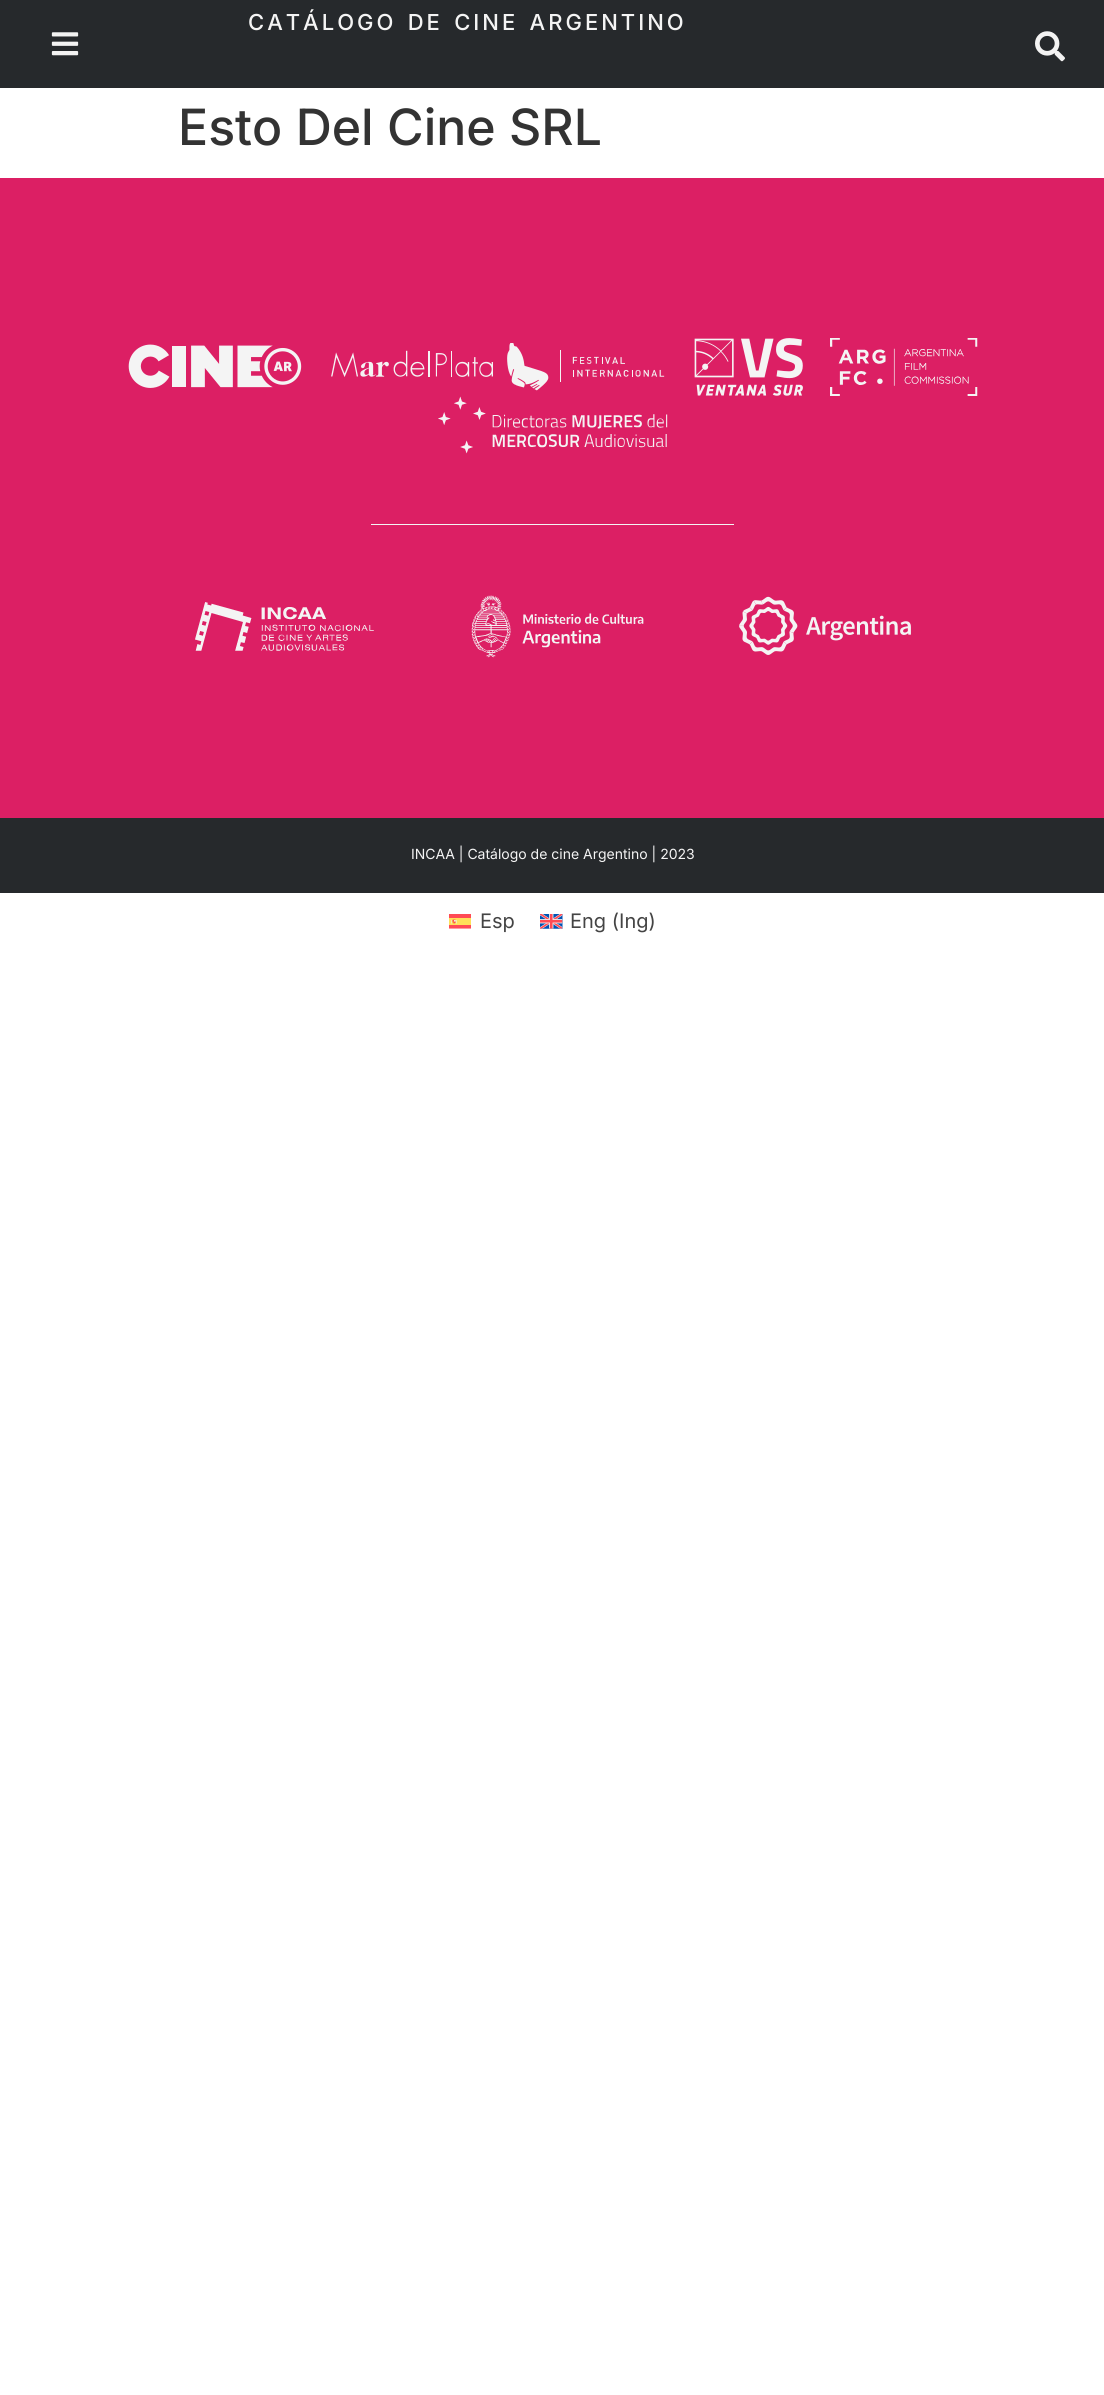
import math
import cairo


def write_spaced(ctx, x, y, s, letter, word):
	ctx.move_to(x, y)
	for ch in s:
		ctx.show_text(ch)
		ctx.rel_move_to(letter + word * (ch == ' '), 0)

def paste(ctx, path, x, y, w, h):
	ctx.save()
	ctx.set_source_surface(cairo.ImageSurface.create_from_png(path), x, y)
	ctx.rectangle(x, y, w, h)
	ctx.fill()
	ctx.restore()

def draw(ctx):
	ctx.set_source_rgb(1, 1, 1)
	ctx.paint()
	ctx.set_source_rgb(0.149, 0.161, 0.173)
	ctx.rectangle(0, 0, 1104, 88)
	ctx.fill()
	ctx.select_font_face('Inter Medium')
	ctx.set_font_size(22)
	ctx.set_source_rgb(0.957, 0.957, 0.957)
	write_spaced(ctx, 248, 30, 'CATÁLOGO DE CINE ARGENTINO', 3, 2.5)
	paste(ctx, 'media/1.png', 51, 32, 28, 24)
	paste(ctx, 'media/2.png', 1035, 31, 30, 31)
	ctx.set_font_size(50)
	ctx.set_source_rgb(0.2, 0.2, 0.2)
	ctx.move_to(178, 145)
	ctx.show_text('Esto Del Cine SRL')
	ctx.set_source_rgb(0.863, 0.122, 0.392)
	ctx.rectangle(0, 178, 1104, 640)
	ctx.fill()
	paste(ctx, 'media/3.png', 128, 344, 174, 44)
	paste(ctx, 'media/4.png', 331, 343, 334, 48)
	paste(ctx, 'media/5.png', 694, 338, 109, 58)
	paste(ctx, 'media/6.png', 830, 338, 148, 58)
	paste(ctx, 'media/7.png', 438, 396, 230, 58)
	ctx.set_source_rgb(0.957, 0.957, 0.957)
	ctx.rectangle(371, 524, 363, 1)
	ctx.fill()
	paste(ctx, 'media/8.png', 195, 602, 179, 49)
	paste(ctx, 'media/9.png', 471, 595, 173, 63)
	paste(ctx, 'media/10.png', 739, 596, 172, 59)
	ctx.set_source_rgb(0.149, 0.161, 0.173)
	ctx.rectangle(0, 818, 1104, 75)
	ctx.fill()
	ctx.select_font_face('Inter')
	ctx.set_font_size(14)
	ctx.set_source_rgb(0.957, 0.957, 0.957)
	ctx.move_to(411, 859)
	ctx.show_text('INCAA | Catálogo de cine Argentino | 2023')
	paste(ctx, 'media/11.png', 449, 914, 22, 15)
	ctx.set_font_size(20)
	ctx.set_source_rgb(0.267, 0.267, 0.267)
	ctx.move_to(480, 928)
	ctx.show_text('Esp')
	paste(ctx, 'media/12.png', 540, 914, 23, 15)
	ctx.move_to(570, 928)
	ctx.show_text('Eng (Ing)')


surface = cairo.ImageSurface(cairo.FORMAT_RGB24, 1104, 2395)
ctx = cairo.Context(surface)
options = cairo.FontOptions()
options.set_hint_metrics(cairo.HINT_METRICS_OFF)
options.set_hint_style(cairo.HINT_STYLE_NONE)
ctx.set_font_options(options)
ctx.set_miter_limit(4)
draw(ctx)
surface.write_to_png('image.png')
